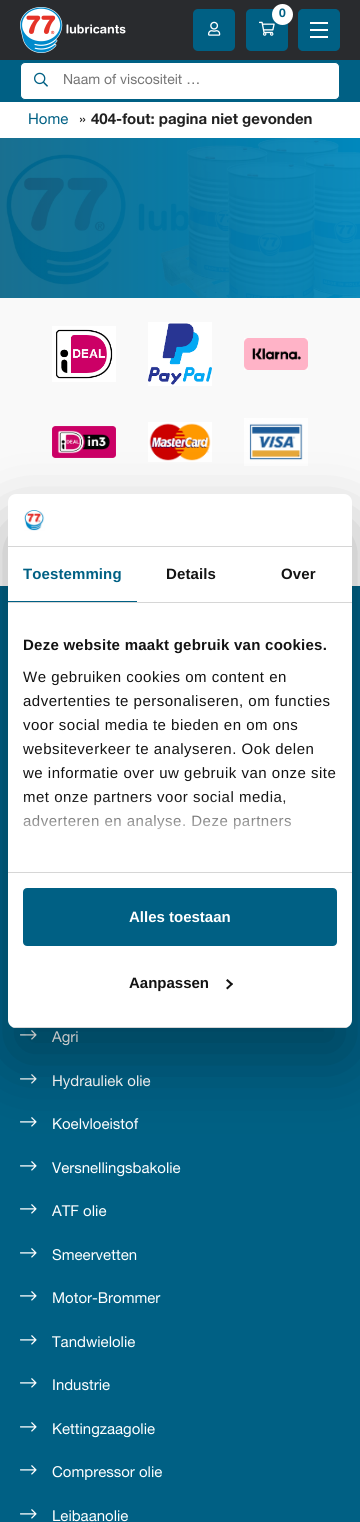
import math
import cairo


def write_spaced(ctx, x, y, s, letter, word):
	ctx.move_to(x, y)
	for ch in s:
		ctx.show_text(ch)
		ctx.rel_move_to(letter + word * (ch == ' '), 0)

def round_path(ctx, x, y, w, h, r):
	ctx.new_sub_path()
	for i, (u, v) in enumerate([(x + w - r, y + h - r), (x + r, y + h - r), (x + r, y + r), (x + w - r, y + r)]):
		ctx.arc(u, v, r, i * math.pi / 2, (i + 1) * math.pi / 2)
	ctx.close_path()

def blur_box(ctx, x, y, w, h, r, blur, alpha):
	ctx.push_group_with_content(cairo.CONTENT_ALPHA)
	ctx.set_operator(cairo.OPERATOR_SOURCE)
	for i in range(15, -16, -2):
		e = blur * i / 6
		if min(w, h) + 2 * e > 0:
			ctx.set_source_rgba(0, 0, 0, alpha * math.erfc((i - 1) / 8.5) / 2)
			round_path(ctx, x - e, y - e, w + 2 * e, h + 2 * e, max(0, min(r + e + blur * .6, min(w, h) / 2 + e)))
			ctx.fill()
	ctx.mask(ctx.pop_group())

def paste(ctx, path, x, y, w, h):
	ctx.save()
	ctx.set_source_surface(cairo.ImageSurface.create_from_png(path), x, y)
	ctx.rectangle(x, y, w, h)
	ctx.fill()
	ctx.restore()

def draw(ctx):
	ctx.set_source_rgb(1, 1, 1)
	ctx.paint()
	ctx.set_source_rgb(0.161, 0.169, 0.18)
	ctx.rectangle(0, 0, 360, 60)
	ctx.fill()
	paste(ctx, 'media/1.png', 20, 7, 106, 46)
	ctx.set_source_rgb(0, 0.376, 0.518)
	round_path(ctx, 193, 9, 42, 42, 5)
	ctx.fill()
	paste(ctx, 'media/2.png', 208, 21, 13, 15)
	round_path(ctx, 246, 9, 42, 42, 5)
	ctx.fill()
	paste(ctx, 'media/3.png', 259, 21, 16, 15)
	ctx.set_source_rgb(1, 1, 1)
	ctx.arc(282.5, 14.5, 10.5, 0, 2 * math.pi)
	ctx.fill()
	ctx.select_font_face('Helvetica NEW', cairo.FONT_SLANT_NORMAL, cairo.FONT_WEIGHT_BOLD)
	ctx.set_font_size(12)
	ctx.set_source_rgb(0, 0.376, 0.518)
	ctx.move_to(279, 17)
	ctx.show_text('0')
	round_path(ctx, 298.5, 9.5, 41, 41, 4.5)
	ctx.fill_preserve()
	ctx.set_line_width(1)
	ctx.stroke()
	ctx.set_source_rgb(1, 1, 1)
	ctx.rectangle(310, 22, 18, 2)
	ctx.rectangle(310, 29, 18, 2)
	ctx.rectangle(310, 36, 18, 2)
	ctx.fill()
	ctx.set_source_rgb(0, 0.376, 0.518)
	ctx.rectangle(0, 60, 360, 42)
	ctx.fill()
	ctx.set_source_rgb(1, 1, 1)
	round_path(ctx, 20.5, 62.5, 319, 37, 4.5)
	ctx.fill_preserve()
	ctx.set_source_rgb(0, 0.376, 0.518)
	ctx.stroke()
	paste(ctx, 'media/4.png', 34, 72, 14, 15)
	ctx.select_font_face('Helvetica NEW')
	ctx.set_font_size(14)
	ctx.set_source_rgb(0.459, 0.459, 0.459)
	ctx.move_to(63, 84)
	ctx.show_text('Naam of viscositeit …')
	ctx.set_font_size(15)
	ctx.set_source_rgb(0, 0.376, 0.518)
	ctx.move_to(28, 124)
	ctx.show_text('Home')
	ctx.set_source_rgb(0.125, 0.125, 0.125)
	ctx.move_to(79, 124)
	ctx.show_text('»')
	ctx.select_font_face('Helvetica NEW', cairo.FONT_SLANT_NORMAL, cairo.FONT_WEIGHT_BOLD)
	ctx.move_to(91, 124)
	ctx.show_text('404-fout: pagina niet gevonden')
	ctx.set_source_rgb(0, 0.537, 0.741)
	ctx.rectangle(283, 138, 77, 160)
	ctx.fill()
	paste(ctx, 'media/5.png', 0, 138, 283, 160)
	paste(ctx, 'media/6.png', 160, 138, 200, 160)
	gradient = cairo.LinearGradient(0, 218, 360, 218)
	gradient.add_color_stop_rgba(0, 0, 0.376, 0.518, 0.9)
	gradient.add_color_stop_rgba(1, 0, 0.537, 0.741, 0.9)
	ctx.set_source(gradient)
	ctx.rectangle(0, 138, 360, 160)
	ctx.fill()
	ctx.set_source_rgb(0.976, 0.976, 0.976)
	ctx.rectangle(0, 298, 360, 288)
	ctx.fill()
	paste(ctx, 'media/7.png', 52, 326, 64, 56)
	paste(ctx, 'media/8.png', 148, 322, 64, 64)
	paste(ctx, 'media/9.png', 244, 338, 64, 32)
	paste(ctx, 'media/10.png', 52, 426, 64, 32)
	paste(ctx, 'media/11.png', 148, 422, 64, 40)
	paste(ctx, 'media/12.png', 244, 418, 64, 48)
	ctx.set_source_rgb(0, 0.376, 0.518)
	ctx.rectangle(0, 586, 360, 936)
	ctx.fill()
	paste(ctx, 'media/13.png', 20, 1030, 17, 10)
	ctx.select_font_face('Helvetica NEW')
	ctx.set_source_rgb(1, 1, 1)
	ctx.move_to(52, 1042)
	ctx.show_text('Agri')
	paste(ctx, 'media/13.png', 20, 1074, 17, 10)
	ctx.move_to(52, 1086)
	ctx.show_text('Hydrauliek olie')
	paste(ctx, 'media/13.png', 20, 1117, 17, 10)
	ctx.move_to(52, 1129)
	ctx.show_text('Koelvloeistof')
	paste(ctx, 'media/13.png', 20, 1161, 17, 10)
	ctx.move_to(52, 1173)
	ctx.show_text('Versnellingsbakolie')
	paste(ctx, 'media/13.png', 20, 1204, 17, 10)
	ctx.move_to(52, 1216)
	ctx.show_text('ATF olie')
	paste(ctx, 'media/13.png', 20, 1248, 17, 10)
	ctx.move_to(52, 1260)
	ctx.show_text('Smeervetten')
	paste(ctx, 'media/13.png', 20, 1291, 17, 10)
	ctx.move_to(52, 1303)
	ctx.show_text('Motor-Brommer')
	paste(ctx, 'media/13.png', 20, 1335, 17, 10)
	ctx.move_to(52, 1347)
	ctx.show_text('Tandwielolie')
	paste(ctx, 'media/13.png', 20, 1378, 17, 10)
	ctx.move_to(52, 1390)
	ctx.show_text('Industrie')
	paste(ctx, 'media/13.png', 20, 1422, 17, 10)
	ctx.move_to(52, 1434)
	ctx.show_text('Kettingzaagolie')
	paste(ctx, 'media/13.png', 20, 1465, 17, 10)
	ctx.move_to(52, 1477)
	ctx.show_text('Compressor olie')
	paste(ctx, 'media/13.png', 20, 1509, 17, 10)
	ctx.move_to(52, 1521)
	ctx.show_text('Leibaanolie')
	ctx.set_source_rgb(0, 0, 0)
	blur_box(ctx, 8, 526, 344, 534, 8, 34, 0.3)
	ctx.set_source_rgb(1, 1, 1)
	round_path(ctx, 8, 494, 344, 534, 8)
	ctx.fill()
	ctx.set_source_rgb(0.839, 0.839, 0.839)
	ctx.rectangle(8, 546, 344, 1)
	ctx.fill()
	paste(ctx, 'media/14.png', 24, 510, 21, 21)
	ctx.rectangle(8, 602, 344, 1)
	ctx.fill()
	ctx.set_source_rgb(0, 0.376, 0.518)
	ctx.rectangle(8, 601, 129, 1)
	ctx.fill()
	ctx.select_font_face('Liberation Sans', cairo.FONT_SLANT_NORMAL, cairo.FONT_WEIGHT_BOLD)
	write_spaced(ctx, 23, 579, 'Toestemming', 0.1, 0)
	ctx.set_source_rgb(0.078, 0.078, 0.078)
	write_spaced(ctx, 166, 579, 'Details', 0.1, 0)
	write_spaced(ctx, 281, 579, 'Over', 0.1, 0)
	ctx.set_source_rgb(0.839, 0.839, 0.839)
	ctx.rectangle(8, 872, 344, 1)
	ctx.fill()
	ctx.set_source_rgb(0.078, 0.078, 0.078)
	write_spaced(ctx, 23, 650, 'Deze website maakt gebruik van cookies.', 0.25, 0)
	ctx.select_font_face('Liberation Sans')
	for x, y, s in [
		(23, 682, 'We gebruiken cookies om content en'),
		(23, 706, 'advertenties te personaliseren, om functies'),
		(23, 730, 'voor social media te bieden en om ons'),
		(23, 754, 'websiteverkeer te analyseren. Ook delen'),
		(23, 778, 'we informatie over uw gebruik van onze site'),
		(23, 802, 'met onze partners voor social media,'),
		(23, 826, 'adverteren en analyse. Deze partners'),
	]:
		write_spaced(ctx, x, y, s, 0.5, 0)
	gradient = cairo.LinearGradient(174, 872, 174, 797)
	gradient.add_color_stop_rgba(0, 1, 1, 1, 1)
	gradient.add_color_stop_rgba(0.5, 1, 1, 1, 0.8)
	gradient.add_color_stop_rgba(1, 1, 1, 1, 0)
	ctx.set_source(gradient)
	ctx.rectangle(23, 798, 268, 32)
	ctx.fill()
	ctx.save()
	round_path(ctx, 8, 494, 344, 534, 8)
	ctx.clip()
	ctx.set_source_rgb(0.839, 0.839, 0.839)
	ctx.rectangle(8, 1027, 344, 1)
	ctx.fill()
	ctx.restore()
	ctx.set_source_rgb(0, 0.376, 0.518)
	round_path(ctx, 24, 889, 312, 56, 3)
	ctx.fill_preserve()
	ctx.set_line_width(2)
	ctx.stroke()
	ctx.select_font_face('Liberation Sans', cairo.FONT_SLANT_NORMAL, cairo.FONT_WEIGHT_BOLD)
	ctx.set_source_rgb(1, 1, 1)
	ctx.move_to(129, 922)
	ctx.show_text('Alles toestaan')
	ctx.set_source_rgb(0.078, 0.078, 0.078)
	ctx.move_to(129, 988)
	ctx.show_text('Aanpassen')
	ctx.new_path()
	ctx.move_to(227.5, 979)
	ctx.line_to(233, 984)
	ctx.line_to(231.5, 985.5)
	ctx.line_to(226, 980.5)
	ctx.close_path()
	ctx.fill()
	ctx.new_path()
	ctx.move_to(231.5, 983)
	ctx.line_to(233, 984)
	ctx.line_to(227.5, 989.5)
	ctx.line_to(226, 988)
	ctx.close_path()
	ctx.fill()


surface = cairo.ImageSurface(cairo.FORMAT_RGB24, 360, 1522)
ctx = cairo.Context(surface)
options = cairo.FontOptions()
options.set_hint_metrics(cairo.HINT_METRICS_OFF)
options.set_hint_style(cairo.HINT_STYLE_NONE)
ctx.set_font_options(options)
ctx.set_miter_limit(4)
draw(ctx)
surface.write_to_png('image.png')
